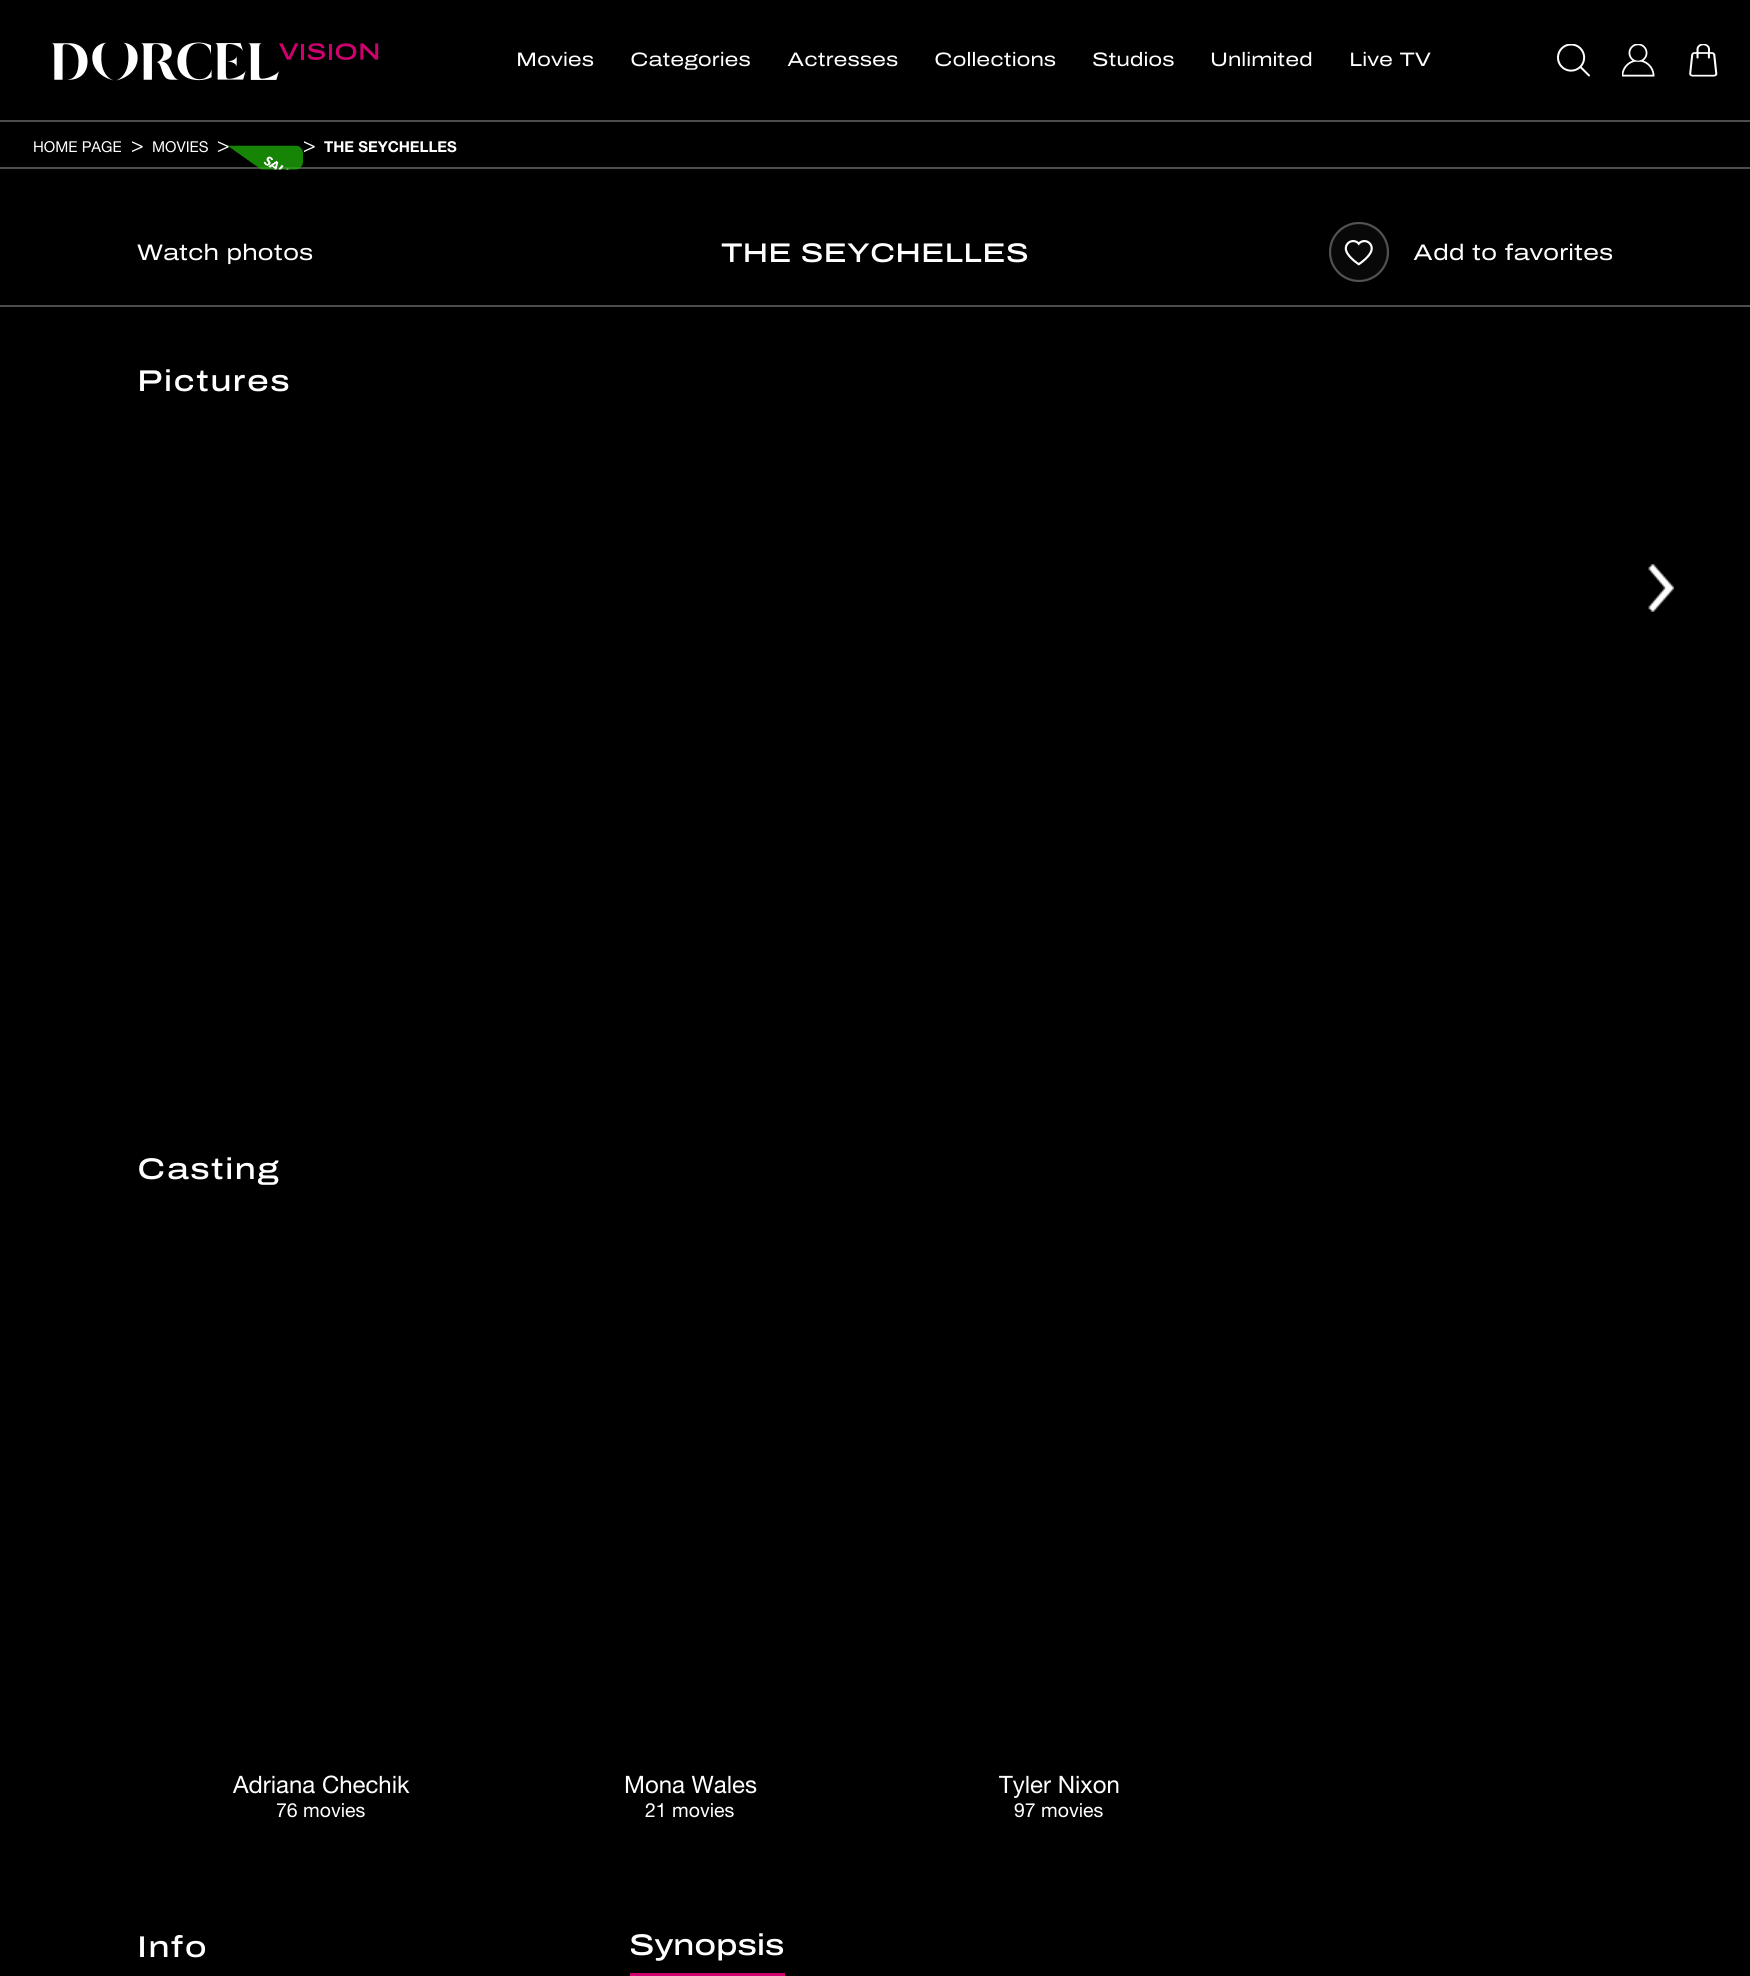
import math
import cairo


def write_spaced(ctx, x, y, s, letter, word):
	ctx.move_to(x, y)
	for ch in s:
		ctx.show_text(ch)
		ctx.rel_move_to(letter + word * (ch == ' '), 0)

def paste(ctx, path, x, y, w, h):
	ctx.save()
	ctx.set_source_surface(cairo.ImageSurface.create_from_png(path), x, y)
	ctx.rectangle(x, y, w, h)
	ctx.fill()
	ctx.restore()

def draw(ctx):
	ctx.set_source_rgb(0, 0, 0)
	ctx.paint()
	paste(ctx, 'media/1.png', 51, 42, 328, 39)
	ctx.select_font_face('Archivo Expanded')
	ctx.set_font_size(19.5)
	ctx.set_source_rgb(1, 1, 1)
	for x, y, s in [
		(516, 66, 'Movies'),
		(630, 66, 'Categories'),
		(787, 66, 'Actresses'),
		(934, 66, 'Collections'),
		(1092, 66, 'Studios'),
		(1210, 66, 'Unlimited'),
		(1349, 66, 'Live TV'),
	]:
		ctx.move_to(x, y)
		ctx.show_text(s)
	paste(ctx, 'media/2.png', 1557, 44, 33, 33)
	paste(ctx, 'media/3.png', 1622, 44, 33, 33)
	paste(ctx, 'media/4.png', 1689, 44, 29, 33)
	ctx.set_source_rgb(0.302, 0.302, 0.302)
	ctx.rectangle(0, 120, 1750, 2)
	ctx.fill()
	ctx.rectangle(0, 167, 1750, 2)
	ctx.fill()
	ctx.select_font_face('Helvetica Neue')
	ctx.set_font_size(15)
	ctx.set_source_rgb(1, 1, 1)
	ctx.move_to(33, 152)
	ctx.show_text('HOME PAGE')
	ctx.set_font_size(21)
	ctx.move_to(131, 152)
	ctx.show_text('>')
	ctx.set_font_size(15)
	ctx.move_to(152, 152)
	ctx.show_text('MOVIES')
	ctx.set_font_size(21)
	ctx.move_to(217, 152)
	ctx.show_text('>')
	ctx.move_to(303, 152)
	ctx.show_text('>')
	ctx.select_font_face('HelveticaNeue', cairo.FONT_SLANT_NORMAL, cairo.FONT_WEIGHT_BOLD)
	ctx.set_font_size(15)
	ctx.move_to(324, 152)
	ctx.show_text('THE SEYCHELLES')
	paste(ctx, 'media/5.png', 227, 145, 76, 25)
	ctx.set_source_rgb(0.302, 0.302, 0.302)
	ctx.rectangle(0, 305, 1750, 2)
	ctx.fill()
	ctx.select_font_face('Archivo Expanded')
	ctx.set_font_size(22.5)
	ctx.set_source_rgb(1, 1, 1)
	ctx.move_to(137, 260)
	ctx.show_text('Watch photos')
	ctx.select_font_face('Archivo Expanded Medium')
	ctx.set_font_size(27)
	ctx.move_to(721, 262)
	ctx.show_text('THE SEYCHELLES')
	paste(ctx, 'media/6.png', 1329, 222, 60, 60)
	ctx.select_font_face('Archivo Expanded')
	ctx.set_font_size(22.5)
	ctx.move_to(1413, 260)
	ctx.show_text('Add to favorites')
	ctx.select_font_face('Archivo Expanded Medium')
	ctx.set_font_size(30)
	write_spaced(ctx, 137, 391, 'Pictures', 1.5, 0)
	paste(ctx, 'media/7.png', 1648, 564, 26, 48)
	write_spaced(ctx, 137, 1179, 'Casting', 1.5, 0)
	ctx.select_font_face('Helvetica Neue')
	ctx.set_font_size(24)
	ctx.move_to(233, 1793)
	ctx.show_text('Adriana Chechik')
	ctx.set_font_size(19.5)
	ctx.move_to(276, 1817)
	ctx.show_text('76 movies')
	ctx.set_font_size(24)
	ctx.move_to(624, 1793)
	ctx.show_text('Mona Wales')
	ctx.set_font_size(19.5)
	ctx.move_to(645, 1817)
	ctx.show_text('21 movies')
	ctx.set_font_size(24)
	ctx.move_to(999, 1793)
	ctx.show_text('Tyler Nixon')
	ctx.set_font_size(19.5)
	ctx.move_to(1014, 1817)
	ctx.show_text('97 movies')
	ctx.select_font_face('Archivo Expanded Medium')
	ctx.set_font_size(30)
	write_spaced(ctx, 137, 1957, 'Info', 1.5, 0)
	ctx.set_source_rgb(0.816, 0, 0.435)
	ctx.rectangle(630, 1973, 155, 3)
	ctx.fill()
	ctx.set_source_rgb(1, 1, 1)
	ctx.move_to(629, 1955)
	ctx.show_text('Synopsis')


surface = cairo.ImageSurface(cairo.FORMAT_RGB24, 1750, 1976)
ctx = cairo.Context(surface)
options = cairo.FontOptions()
options.set_hint_metrics(cairo.HINT_METRICS_OFF)
options.set_hint_style(cairo.HINT_STYLE_NONE)
ctx.set_font_options(options)
ctx.set_miter_limit(4)
draw(ctx)
surface.write_to_png('image.png')
